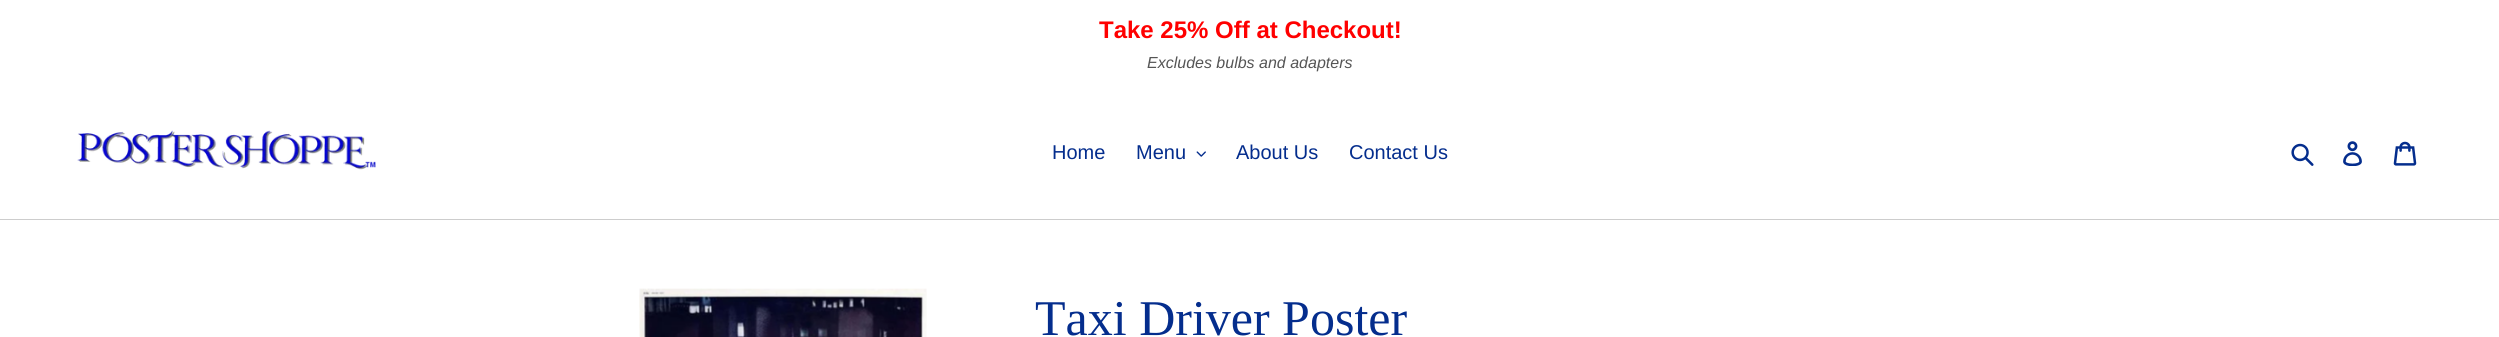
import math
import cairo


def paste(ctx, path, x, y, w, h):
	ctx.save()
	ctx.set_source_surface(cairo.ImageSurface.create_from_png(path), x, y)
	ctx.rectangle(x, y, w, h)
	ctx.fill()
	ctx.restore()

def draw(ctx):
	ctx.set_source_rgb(1, 1, 1)
	ctx.paint()
	ctx.select_font_face('Liberation Sans', cairo.FONT_SLANT_NORMAL, cairo.FONT_WEIGHT_BOLD)
	ctx.set_font_size(24)
	ctx.set_source_rgb(1, 0, 0)
	ctx.move_to(1099, 38)
	ctx.show_text('Take 25% Off at Checkout!')
	ctx.select_font_face('Liberation Sans', cairo.FONT_SLANT_ITALIC)
	ctx.set_font_size(16)
	ctx.set_source_rgb(0.333, 0.333, 0.333)
	ctx.move_to(1147, 68)
	ctx.show_text('Excludes bulbs and adapters')
	ctx.set_source_rgb(0.804, 0.804, 0.804)
	ctx.rectangle(0, 219, 2499, 1)
	ctx.fill()
	paste(ctx, 'media/1.png', 77, 130, 299, 40)
	ctx.select_font_face('Liberation Sans')
	ctx.set_font_size(20)
	ctx.set_source_rgb(0.016, 0.176, 0.553)
	ctx.move_to(1052, 159)
	ctx.show_text('Home')
	ctx.move_to(1136, 159)
	ctx.show_text('Menu')
	paste(ctx, 'media/2.png', 1196, 151, 10, 6)
	ctx.move_to(1236, 159)
	ctx.show_text('About Us')
	ctx.move_to(1349, 159)
	ctx.show_text('Contact Us')
	paste(ctx, 'media/3.png', 2291, 143, 23, 23)
	paste(ctx, 'media/4.png', 2343, 141, 19, 25)
	paste(ctx, 'media/5.png', 2393, 141, 24, 25)
	paste(ctx, 'media/6.png', 639, 288, 288, 49)
	ctx.select_font_face('Liberation Serif')
	ctx.set_font_size(50)
	ctx.move_to(1035, 335)
	ctx.show_text('Taxi Driver Poster')


surface = cairo.ImageSurface(cairo.FORMAT_RGB24, 2499, 337)
ctx = cairo.Context(surface)
options = cairo.FontOptions()
options.set_hint_metrics(cairo.HINT_METRICS_OFF)
options.set_hint_style(cairo.HINT_STYLE_NONE)
ctx.set_font_options(options)
ctx.set_miter_limit(4)
draw(ctx)
surface.write_to_png('image.png')
